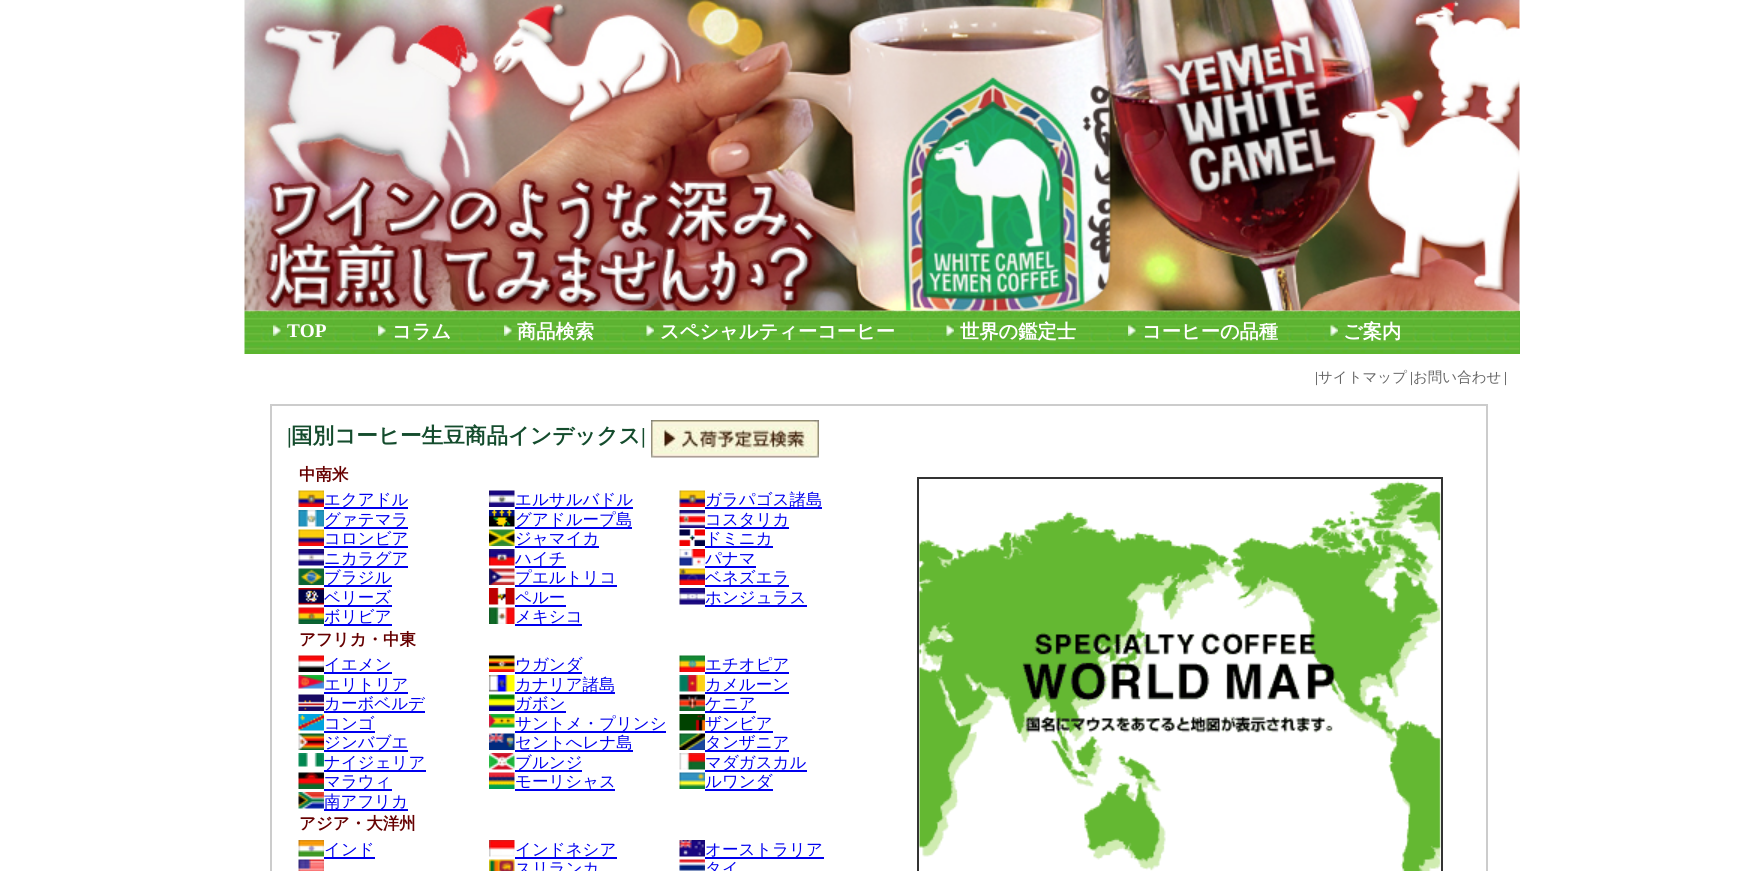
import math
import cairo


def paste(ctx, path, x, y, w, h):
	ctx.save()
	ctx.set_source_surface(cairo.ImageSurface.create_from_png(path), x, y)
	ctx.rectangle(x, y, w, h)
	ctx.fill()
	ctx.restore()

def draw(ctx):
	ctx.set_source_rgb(1, 1, 1)
	ctx.paint()
	ctx.set_source_rgb(0.345, 0.702, 0.188)
	ctx.rectangle(1519, 311, 1, 43)
	ctx.fill()
	paste(ctx, 'media/2.png', 244, 310, 1276, 44)
	paste(ctx, 'media/3.png', 268, 310, 58, 39)
	paste(ctx, 'media/5.png', 373, 310, 79, 39)
	paste(ctx, 'media/7.png', 499, 310, 95, 39)
	paste(ctx, 'media/8.png', 642, 310, 252, 39)
	paste(ctx, 'media/10.png', 942, 310, 134, 39)
	paste(ctx, 'media/12.png', 1123, 310, 155, 39)
	paste(ctx, 'media/13.png', 1326, 310, 75, 39)
	paste(ctx, 'media/1.png', 244, 0, 1276, 311)
	paste(ctx, 'media/4.png', 273, 324, 8, 12)
	ctx.select_font_face('Liberation Serif', cairo.FONT_SLANT_NORMAL, cairo.FONT_WEIGHT_BOLD)
	ctx.set_font_size(19.25)
	ctx.set_source_rgb(1, 1, 1)
	ctx.move_to(287, 337)
	ctx.show_text('TOP')
	paste(ctx, 'media/6.png', 378, 324, 8, 12)
	ctx.select_font_face('WenQuanYi Zen Hei', cairo.FONT_SLANT_NORMAL, cairo.FONT_WEIGHT_BOLD)
	ctx.move_to(392, 338)
	ctx.show_text('コラム')
	paste(ctx, 'media/4.png', 504, 324, 8, 12)
	ctx.move_to(517, 338)
	ctx.show_text('商品検索')
	paste(ctx, 'media/9.png', 646, 324, 8, 12)
	ctx.move_to(660, 338)
	ctx.show_text('スペシャルティーコーヒー')
	paste(ctx, 'media/11.png', 946, 324, 8, 12)
	ctx.move_to(960, 338)
	ctx.show_text('世界の鑑定士')
	paste(ctx, 'media/4.png', 1128, 324, 8, 12)
	ctx.move_to(1142, 338)
	ctx.show_text('コーヒーの品種')
	paste(ctx, 'media/14.png', 1330, 324, 8, 12)
	ctx.move_to(1343, 338)
	ctx.show_text('ご案内')
	ctx.select_font_face('Liberation Serif')
	ctx.set_font_size(14.5)
	ctx.set_source_rgb(0.2, 0.2, 0.2)
	ctx.move_to(1315, 382)
	ctx.show_text('|')
	ctx.select_font_face('WenQuanYi Zen Hei Medium')
	ctx.set_source_rgb(0.4, 0.4, 0.4)
	ctx.move_to(1318, 382)
	ctx.show_text('サイトマップ')
	ctx.select_font_face('Liberation Serif')
	ctx.set_source_rgb(0.2, 0.2, 0.2)
	ctx.move_to(1410, 382)
	ctx.show_text('|')
	ctx.select_font_face('WenQuanYi Zen Hei Medium')
	ctx.set_source_rgb(0.4, 0.4, 0.4)
	ctx.move_to(1413, 382)
	ctx.show_text('お問い合わせ')
	ctx.select_font_face('Liberation Serif')
	ctx.set_source_rgb(0.2, 0.2, 0.2)
	ctx.move_to(1504, 382)
	ctx.show_text('|')
	ctx.rectangle(271, 405, 1216, 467)
	ctx.set_source_rgb(0.8, 0.8, 0.8)
	ctx.stroke()
	ctx.select_font_face('Liberation Serif', cairo.FONT_SLANT_NORMAL, cairo.FONT_WEIGHT_BOLD)
	ctx.set_font_size(21.6)
	ctx.set_source_rgb(0.082, 0.298, 0.176)
	ctx.move_to(287, 443)
	ctx.show_text('|')
	ctx.select_font_face('WenQuanYi Zen Hei', cairo.FONT_SLANT_NORMAL, cairo.FONT_WEIGHT_BOLD)
	ctx.move_to(291, 443)
	ctx.show_text('国別コーヒー生豆商品インデックス')
	ctx.select_font_face('Liberation Serif', cairo.FONT_SLANT_NORMAL, cairo.FONT_WEIGHT_BOLD)
	ctx.move_to(641, 443)
	ctx.show_text('|')
	paste(ctx, 'media/15.png', 651, 420, 168, 38)
	ctx.select_font_face('WenQuanYi Zen Hei', cairo.FONT_SLANT_NORMAL, cairo.FONT_WEIGHT_BOLD)
	ctx.set_font_size(16.5)
	ctx.set_source_rgb(0.4, 0, 0)
	ctx.move_to(299, 480)
	ctx.show_text('中南米')
	paste(ctx, 'media/16.png', 298, 490, 26, 17)
	ctx.set_source_rgb(0, 0, 0.933)
	ctx.rectangle(324, 507, 84, 2)
	ctx.fill()
	ctx.select_font_face('WenQuanYi Zen Hei Medium')
	ctx.move_to(324, 505)
	ctx.show_text('エクアドル')
	paste(ctx, 'media/17.png', 489, 490, 26, 17)
	ctx.rectangle(515, 507, 118, 2)
	ctx.fill()
	ctx.move_to(515, 505)
	ctx.show_text('エルサルバドル')
	paste(ctx, 'media/16.png', 679, 490, 26, 17)
	ctx.rectangle(705, 507, 117, 2)
	ctx.fill()
	ctx.move_to(705, 505)
	ctx.show_text('ガラパゴス諸島')
	paste(ctx, 'media/18.png', 298, 510, 26, 17)
	ctx.rectangle(324, 527, 84, 2)
	ctx.fill()
	ctx.move_to(324, 525)
	ctx.show_text('グァテマラ')
	paste(ctx, 'media/19.png', 489, 510, 26, 17)
	ctx.rectangle(515, 527, 117, 2)
	ctx.fill()
	ctx.move_to(515, 525)
	ctx.show_text('グアドループ島')
	paste(ctx, 'media/20.png', 679, 510, 26, 18)
	ctx.rectangle(705, 527, 84, 2)
	ctx.fill()
	ctx.move_to(705, 525)
	ctx.show_text('コスタリカ')
	paste(ctx, 'media/21.png', 298, 529, 26, 17)
	ctx.move_to(324, 544)
	ctx.show_text('コロンビア')
	ctx.rectangle(324, 546, 84, 2)
	ctx.fill()
	paste(ctx, 'media/22.png', 489, 529, 26, 17)
	ctx.rectangle(515, 546, 84, 2)
	ctx.fill()
	ctx.move_to(515, 544)
	ctx.show_text('ジャマイカ')
	paste(ctx, 'media/23.png', 679, 529, 26, 17)
	ctx.rectangle(705, 546, 68, 2)
	ctx.fill()
	ctx.move_to(705, 544)
	ctx.show_text('ドミニカ')
	paste(ctx, 'media/24.png', 298, 549, 26, 17)
	ctx.rectangle(324, 566, 84, 2)
	ctx.fill()
	ctx.move_to(324, 564)
	ctx.show_text('ニカラグア')
	paste(ctx, 'media/25.png', 489, 549, 26, 17)
	ctx.rectangle(515, 566, 51, 2)
	ctx.fill()
	ctx.move_to(515, 564)
	ctx.show_text('ハイチ')
	paste(ctx, 'media/26.png', 679, 549, 26, 17)
	ctx.rectangle(705, 566, 51, 2)
	ctx.fill()
	ctx.move_to(705, 564)
	ctx.show_text('パナマ')
	paste(ctx, 'media/27.png', 298, 568, 26, 17)
	ctx.rectangle(324, 585, 68, 2)
	ctx.fill()
	ctx.move_to(324, 583)
	ctx.show_text('ブラジル')
	paste(ctx, 'media/28.png', 489, 568, 26, 17)
	ctx.rectangle(515, 585, 102, 2)
	ctx.fill()
	ctx.move_to(515, 583)
	ctx.show_text('プエルトリコ')
	paste(ctx, 'media/29.png', 679, 568, 26, 17)
	ctx.rectangle(705, 585, 84, 2)
	ctx.fill()
	ctx.move_to(705, 583)
	ctx.show_text('ベネズエラ')
	paste(ctx, 'media/30.png', 298, 588, 26, 17)
	ctx.rectangle(324, 605, 68, 2)
	ctx.fill()
	ctx.move_to(324, 603)
	ctx.show_text('ベリーズ')
	paste(ctx, 'media/31.png', 489, 588, 26, 17)
	ctx.move_to(515, 603)
	ctx.show_text('ペルー')
	ctx.rectangle(515, 605, 51, 2)
	ctx.fill()
	paste(ctx, 'media/32.png', 679, 588, 26, 17)
	ctx.move_to(705, 603)
	ctx.show_text('ホンジュラス')
	ctx.rectangle(705, 605, 102, 2)
	ctx.fill()
	paste(ctx, 'media/33.png', 298, 607, 26, 17)
	ctx.rectangle(324, 624, 68, 2)
	ctx.fill()
	ctx.move_to(324, 622)
	ctx.show_text('ボリビア')
	paste(ctx, 'media/34.png', 489, 607, 26, 17)
	ctx.rectangle(515, 624, 67, 2)
	ctx.fill()
	ctx.move_to(515, 622)
	ctx.show_text('メキシコ')
	ctx.select_font_face('WenQuanYi Zen Hei', cairo.FONT_SLANT_NORMAL, cairo.FONT_WEIGHT_BOLD)
	ctx.set_source_rgb(0.4, 0, 0)
	ctx.move_to(299, 645)
	ctx.show_text('アフリカ・中東')
	paste(ctx, 'media/35.png', 298, 655, 26, 17)
	ctx.set_source_rgb(0, 0, 0.933)
	ctx.rectangle(324, 672, 68, 2)
	ctx.fill()
	ctx.select_font_face('WenQuanYi Zen Hei Medium')
	ctx.move_to(324, 670)
	ctx.show_text('イエメン')
	paste(ctx, 'media/36.png', 489, 655, 26, 17)
	ctx.rectangle(515, 672, 67, 2)
	ctx.fill()
	ctx.move_to(515, 670)
	ctx.show_text('ウガンダ')
	paste(ctx, 'media/37.png', 679, 655, 26, 17)
	ctx.move_to(705, 670)
	ctx.show_text('エチオピア')
	ctx.rectangle(705, 672, 84, 2)
	ctx.fill()
	paste(ctx, 'media/38.png', 298, 675, 26, 14)
	ctx.rectangle(324, 692, 84, 2)
	ctx.fill()
	ctx.move_to(324, 690)
	ctx.show_text('エリトリア')
	paste(ctx, 'media/39.png', 489, 675, 26, 17)
	ctx.rectangle(515, 692, 100, 2)
	ctx.fill()
	ctx.move_to(515, 690)
	ctx.show_text('カナリア諸島')
	paste(ctx, 'media/40.png', 679, 675, 26, 17)
	ctx.move_to(705, 690)
	ctx.show_text('カメルーン')
	ctx.rectangle(705, 692, 84, 2)
	ctx.fill()
	paste(ctx, 'media/41.png', 298, 694, 26, 17)
	ctx.move_to(324, 709)
	ctx.show_text('カーボベルデ')
	ctx.rectangle(324, 711, 101, 2)
	ctx.fill()
	paste(ctx, 'media/42.png', 489, 694, 26, 17)
	ctx.move_to(515, 709)
	ctx.show_text('ガボン')
	ctx.rectangle(515, 711, 51, 2)
	ctx.fill()
	paste(ctx, 'media/43.png', 679, 694, 26, 17)
	ctx.move_to(705, 709)
	ctx.show_text('ケニア')
	ctx.rectangle(705, 711, 51, 2)
	ctx.fill()
	paste(ctx, 'media/44.png', 298, 714, 26, 17)
	ctx.move_to(324, 729)
	ctx.show_text('コンゴ')
	ctx.rectangle(324, 731, 51, 2)
	ctx.fill()
	paste(ctx, 'media/45.png', 489, 714, 26, 14)
	ctx.rectangle(515, 731, 151, 2)
	ctx.fill()
	ctx.move_to(515, 729)
	ctx.show_text('サントメ・プリンシ')
	paste(ctx, 'media/46.png', 679, 714, 26, 17)
	ctx.rectangle(705, 731, 68, 2)
	ctx.fill()
	ctx.move_to(705, 729)
	ctx.show_text('ザンビア')
	paste(ctx, 'media/47.png', 298, 733, 26, 17)
	ctx.rectangle(324, 750, 84, 2)
	ctx.fill()
	ctx.move_to(324, 748)
	ctx.show_text('ジンバブエ')
	paste(ctx, 'media/48.png', 489, 733, 26, 17)
	ctx.rectangle(515, 750, 118, 2)
	ctx.fill()
	ctx.move_to(515, 748)
	ctx.show_text('セントへレナ島')
	paste(ctx, 'media/49.png', 679, 733, 26, 17)
	ctx.rectangle(705, 750, 84, 2)
	ctx.fill()
	ctx.move_to(705, 748)
	ctx.show_text('タンザニア')
	paste(ctx, 'media/50.png', 298, 753, 26, 14)
	ctx.rectangle(324, 770, 102, 2)
	ctx.fill()
	ctx.move_to(324, 768)
	ctx.show_text('ナイジェリア')
	paste(ctx, 'media/51.png', 489, 753, 26, 17)
	ctx.rectangle(515, 770, 67, 2)
	ctx.fill()
	ctx.move_to(515, 768)
	ctx.show_text('ブルンジ')
	paste(ctx, 'media/52.png', 679, 753, 26, 17)
	ctx.rectangle(705, 770, 102, 2)
	ctx.fill()
	ctx.move_to(705, 768)
	ctx.show_text('マダガスカル')
	paste(ctx, 'media/53.png', 298, 772, 26, 17)
	ctx.rectangle(324, 789, 68, 2)
	ctx.fill()
	ctx.move_to(324, 787)
	ctx.show_text('マラウィ')
	paste(ctx, 'media/54.png', 489, 772, 26, 17)
	ctx.rectangle(515, 789, 100, 2)
	ctx.fill()
	ctx.move_to(515, 787)
	ctx.show_text('モーリシャス')
	paste(ctx, 'media/55.png', 679, 772, 26, 17)
	ctx.rectangle(705, 789, 68, 2)
	ctx.fill()
	ctx.move_to(705, 787)
	ctx.show_text('ルワンダ')
	paste(ctx, 'media/56.png', 298, 792, 26, 17)
	ctx.rectangle(324, 809, 84, 2)
	ctx.fill()
	ctx.move_to(324, 807)
	ctx.show_text('南アフリカ')
	ctx.select_font_face('WenQuanYi Zen Hei', cairo.FONT_SLANT_NORMAL, cairo.FONT_WEIGHT_BOLD)
	ctx.set_source_rgb(0.4, 0, 0)
	ctx.move_to(299, 829)
	ctx.show_text('アジア・大洋州')
	paste(ctx, 'media/57.png', 298, 840, 26, 17)
	ctx.set_source_rgb(0, 0, 0.933)
	ctx.rectangle(324, 857, 51, 2)
	ctx.fill()
	ctx.select_font_face('WenQuanYi Zen Hei Medium')
	ctx.move_to(324, 855)
	ctx.show_text('インド')
	paste(ctx, 'media/58.png', 489, 840, 26, 17)
	ctx.rectangle(515, 857, 102, 2)
	ctx.fill()
	ctx.move_to(515, 855)
	ctx.show_text('インドネシア')
	paste(ctx, 'media/59.png', 679, 840, 26, 17)
	ctx.rectangle(705, 857, 119, 2)
	ctx.fill()
	ctx.move_to(705, 855)
	ctx.show_text('オーストラリア')
	paste(ctx, 'media/60.png', 298, 859, 26, 12)
	paste(ctx, 'media/61.png', 489, 859, 26, 12)
	ctx.move_to(515, 874)
	ctx.show_text('スリランカ')
	paste(ctx, 'media/62.png', 679, 859, 26, 12)
	ctx.move_to(705, 874)
	ctx.show_text('タイ')
	ctx.rectangle(918, 478, 524, 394)
	ctx.set_source_rgb(0.2, 0.2, 0.2)
	ctx.stroke()
	paste(ctx, 'media/63.png', 919, 481, 522, 390)


surface = cairo.ImageSurface(cairo.FORMAT_RGB24, 1764, 871)
ctx = cairo.Context(surface)
options = cairo.FontOptions()
options.set_hint_metrics(cairo.HINT_METRICS_OFF)
options.set_hint_style(cairo.HINT_STYLE_NONE)
ctx.set_font_options(options)
ctx.set_miter_limit(4)
draw(ctx)
surface.write_to_png('image.png')
